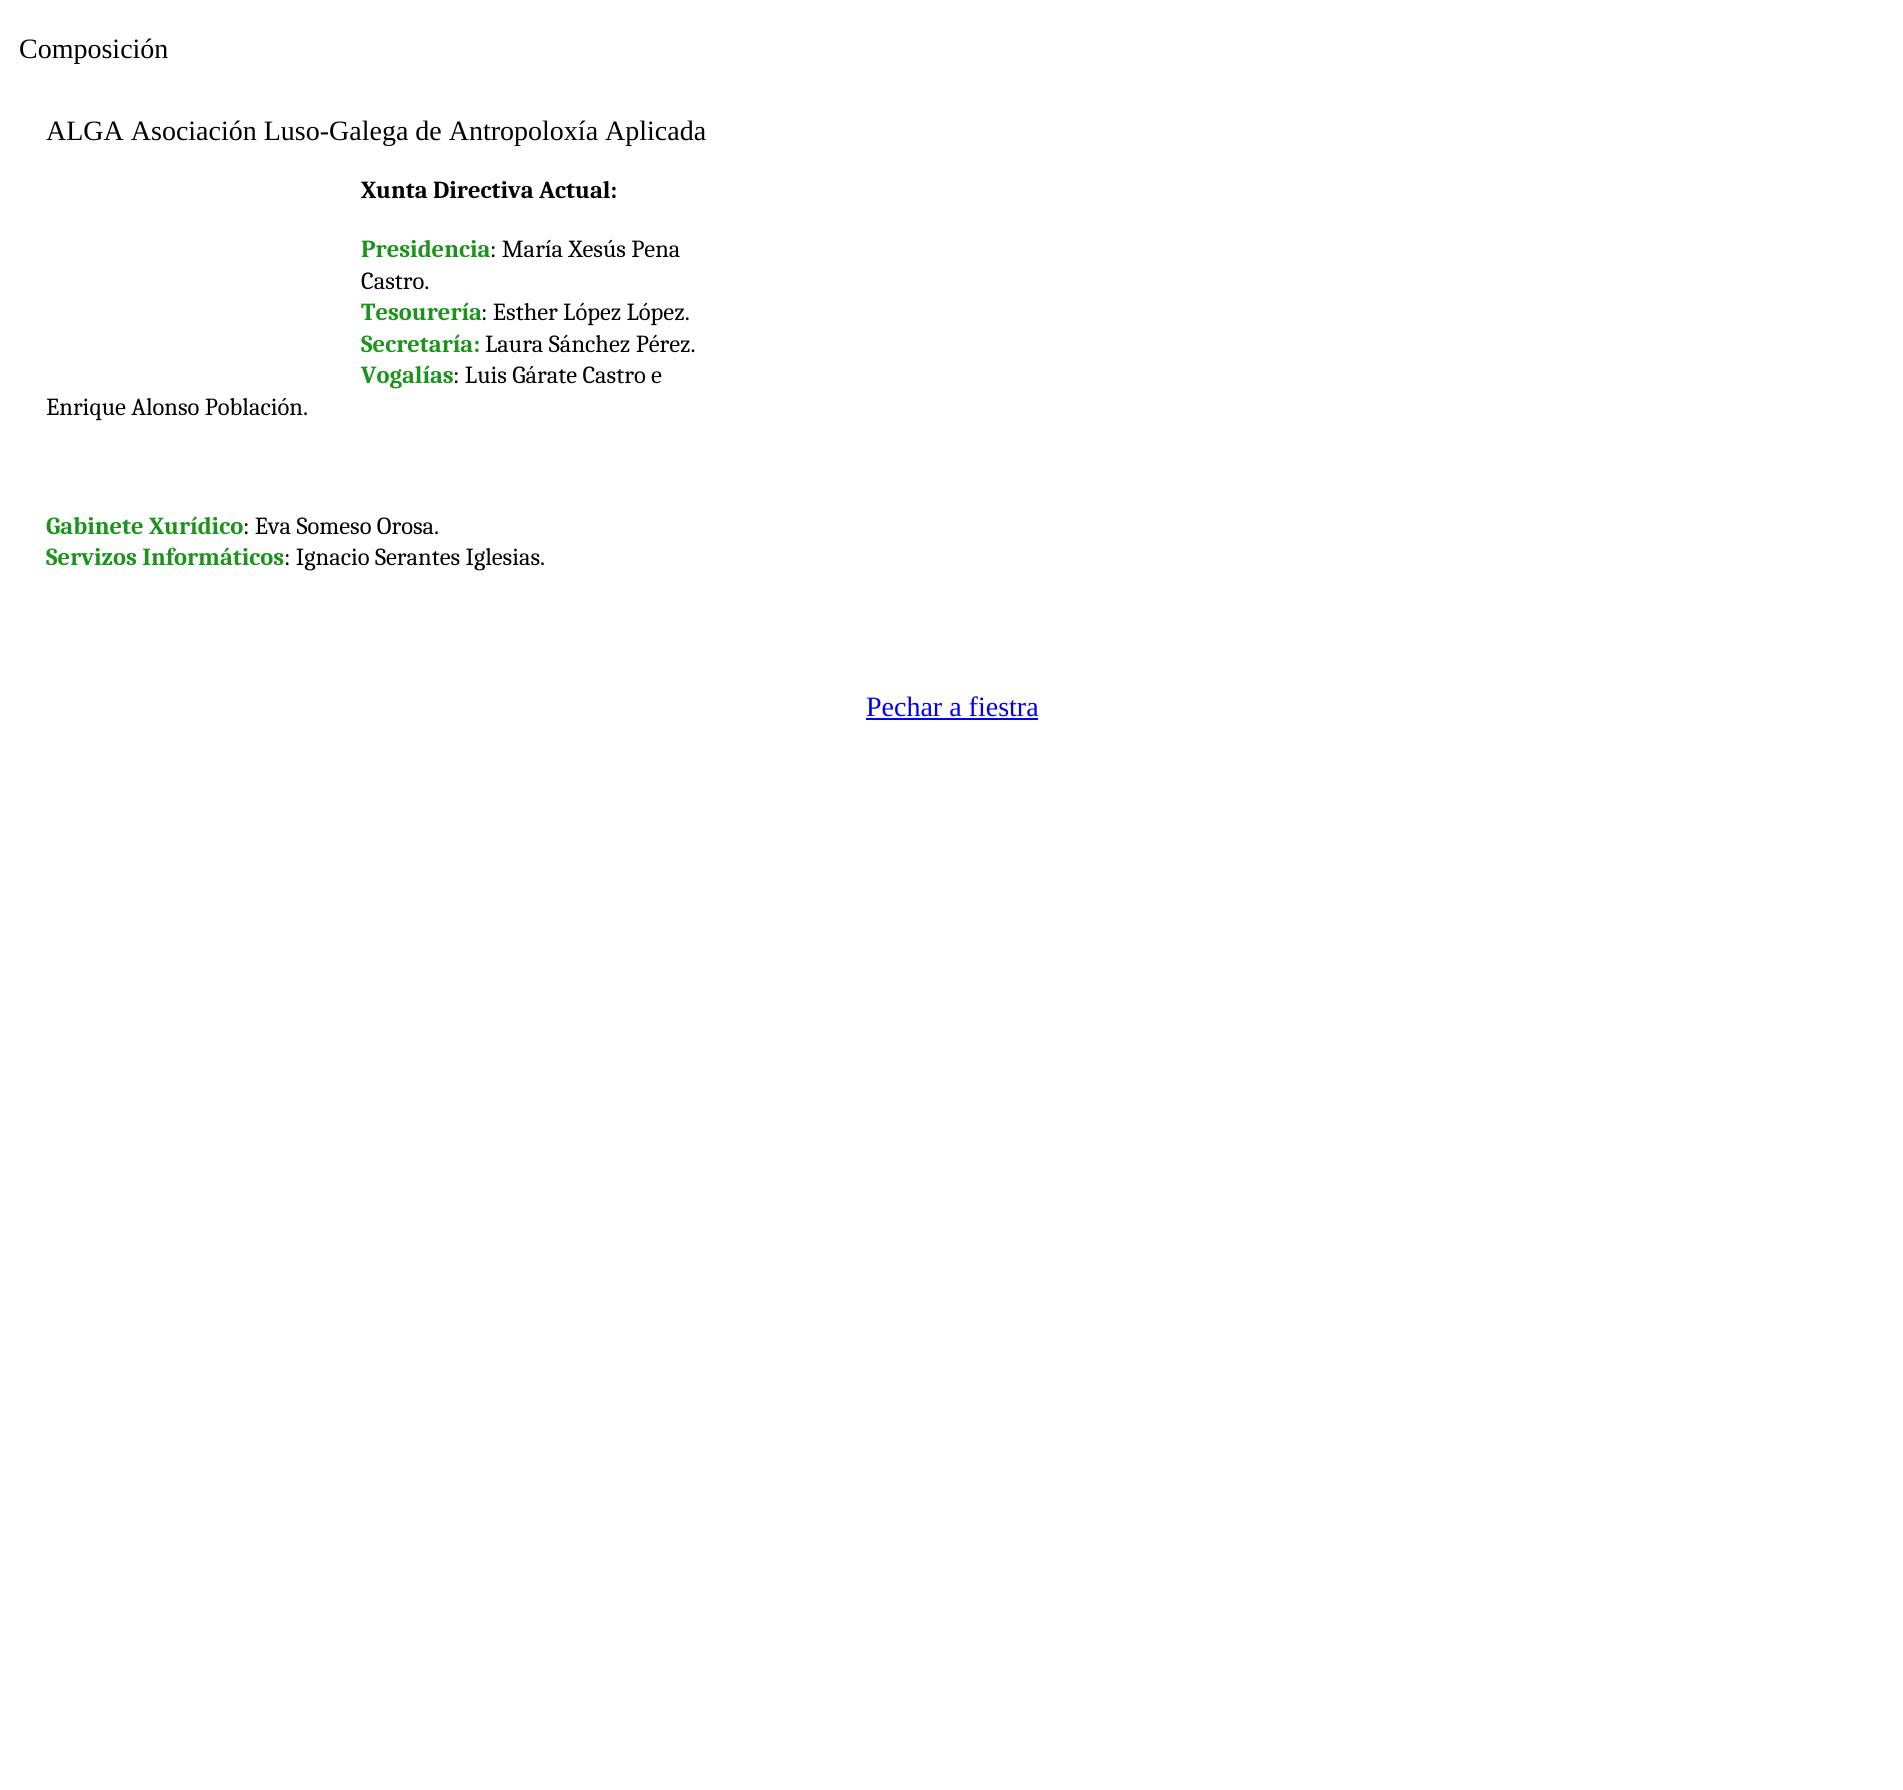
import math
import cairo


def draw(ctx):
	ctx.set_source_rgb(1, 1, 1)
	ctx.paint()
	ctx.select_font_face('Liberation Serif')
	ctx.set_font_size(28)
	ctx.set_source_rgb(0, 0, 0)
	ctx.move_to(19, 58)
	ctx.show_text('Composición')
	ctx.move_to(46, 140)
	ctx.show_text('ALGA Asociación Luso-Galega de Antropoloxía Aplicada')
	ctx.select_font_face('Caladea', cairo.FONT_SLANT_NORMAL, cairo.FONT_WEIGHT_BOLD)
	ctx.set_font_size(24.5)
	ctx.move_to(361, 198)
	ctx.show_text('Xunta Directiva Actual:')
	ctx.set_source_rgb(0.114, 0.576, 0.114)
	ctx.move_to(361, 257)
	ctx.show_text('Presidencia')
	ctx.select_font_face('Caladea')
	ctx.set_source_rgb(0, 0, 0)
	ctx.move_to(490, 257)
	ctx.show_text(': María Xesús Pena')
	ctx.move_to(361, 289)
	ctx.show_text('Castro.')
	ctx.select_font_face('Caladea', cairo.FONT_SLANT_NORMAL, cairo.FONT_WEIGHT_BOLD)
	ctx.set_source_rgb(0.114, 0.576, 0.114)
	ctx.move_to(361, 320)
	ctx.show_text('Tesourería')
	ctx.select_font_face('Caladea')
	ctx.set_source_rgb(0, 0, 0)
	ctx.move_to(481, 320)
	ctx.show_text(': Esther López López.')
	ctx.select_font_face('Caladea', cairo.FONT_SLANT_NORMAL, cairo.FONT_WEIGHT_BOLD)
	ctx.set_source_rgb(0.114, 0.576, 0.114)
	ctx.move_to(361, 352)
	ctx.show_text('Secretaría:')
	ctx.select_font_face('Caladea')
	ctx.set_source_rgb(0, 0, 0)
	ctx.move_to(485, 352)
	ctx.show_text('Laura Sánchez Pérez.')
	ctx.select_font_face('Caladea', cairo.FONT_SLANT_NORMAL, cairo.FONT_WEIGHT_BOLD)
	ctx.set_source_rgb(0.114, 0.576, 0.114)
	ctx.move_to(361, 383)
	ctx.show_text('Vogalías')
	ctx.select_font_face('Caladea')
	ctx.set_source_rgb(0, 0, 0)
	ctx.move_to(453, 383)
	ctx.show_text(': Luis Gárate Castro e')
	ctx.move_to(46, 415)
	ctx.show_text('Enrique Alonso Población.')
	ctx.select_font_face('Caladea', cairo.FONT_SLANT_NORMAL, cairo.FONT_WEIGHT_BOLD)
	ctx.set_source_rgb(0.114, 0.576, 0.114)
	ctx.move_to(46, 534)
	ctx.show_text('Gabinete Xurídico')
	ctx.select_font_face('Caladea')
	ctx.set_source_rgb(0, 0, 0)
	ctx.move_to(243, 534)
	ctx.show_text(': Eva Someso Orosa.')
	ctx.select_font_face('Caladea', cairo.FONT_SLANT_NORMAL, cairo.FONT_WEIGHT_BOLD)
	ctx.set_source_rgb(0.114, 0.576, 0.114)
	ctx.move_to(46, 565)
	ctx.show_text('Servizos Informáticos')
	ctx.select_font_face('Caladea')
	ctx.set_source_rgb(0, 0, 0)
	ctx.move_to(284, 565)
	ctx.show_text(': Ignacio Serantes Iglesias.')
	ctx.select_font_face('Liberation Serif')
	ctx.set_font_size(28)
	ctx.set_source_rgb(0, 0, 0.933)
	ctx.move_to(866, 716)
	ctx.show_text('Pechar a fiestra')
	ctx.rectangle(866, 718, 172, 2)
	ctx.fill()


surface = cairo.ImageSurface(cairo.FORMAT_RGB24, 1903, 1790)
ctx = cairo.Context(surface)
options = cairo.FontOptions()
options.set_hint_metrics(cairo.HINT_METRICS_OFF)
options.set_hint_style(cairo.HINT_STYLE_NONE)
ctx.set_font_options(options)
ctx.set_miter_limit(4)
draw(ctx)
surface.write_to_png('image.png')
